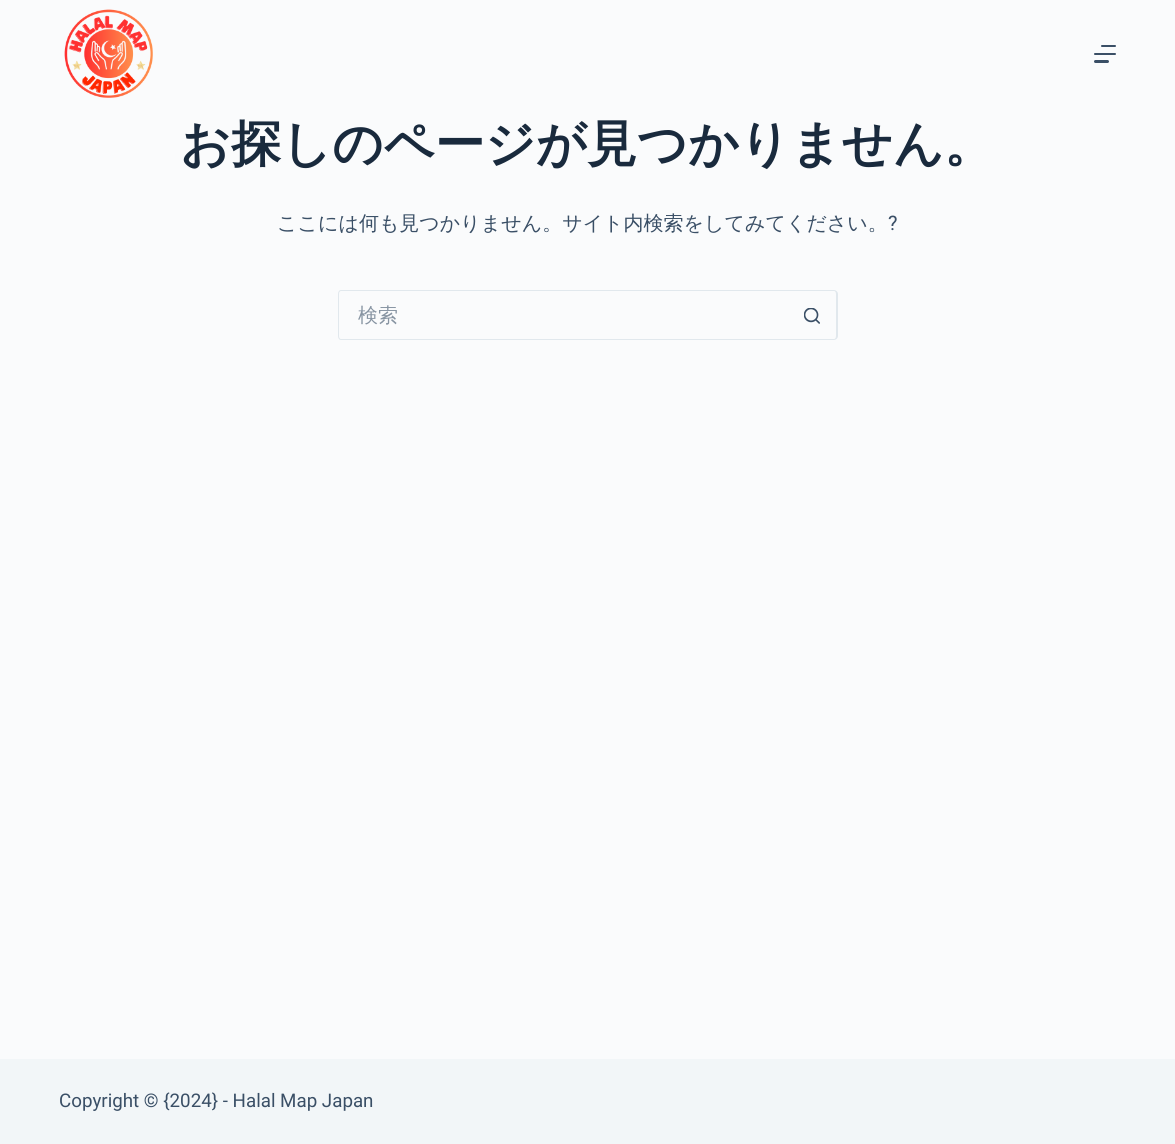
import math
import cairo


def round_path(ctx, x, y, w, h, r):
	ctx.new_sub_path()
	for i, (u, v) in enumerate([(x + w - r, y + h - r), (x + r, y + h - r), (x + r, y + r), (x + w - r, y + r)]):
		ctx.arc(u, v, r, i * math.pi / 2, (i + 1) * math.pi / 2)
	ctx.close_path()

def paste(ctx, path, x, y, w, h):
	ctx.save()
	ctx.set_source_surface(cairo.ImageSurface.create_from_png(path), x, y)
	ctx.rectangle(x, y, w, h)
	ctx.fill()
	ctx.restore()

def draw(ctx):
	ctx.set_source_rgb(0.98, 0.984, 0.988)
	ctx.paint()
	paste(ctx, 'media/1.png', 64, 9, 89, 89)
	ctx.set_source_rgb(0.227, 0.31, 0.4)
	round_path(ctx, 1101, 45, 15, 2, 1)
	ctx.fill()
	round_path(ctx, 1094, 53, 22, 2, 1)
	ctx.fill()
	round_path(ctx, 1094, 60, 15, 3, 1.5)
	ctx.fill()
	ctx.select_font_face('WenQuanYi Zen Hei', cairo.FONT_SLANT_NORMAL, cairo.FONT_WEIGHT_BOLD)
	ctx.set_font_size(50)
	ctx.set_source_rgb(0.098, 0.165, 0.239)
	ctx.move_to(180, 161)
	ctx.show_text('お探しのページが見つかりません。')
	ctx.select_font_face('WenQuanYi Zen Hei Medium')
	ctx.set_font_size(20)
	ctx.set_source_rgb(0.227, 0.31, 0.4)
	ctx.move_to(277, 230)
	ctx.show_text('ここには何も見つかりません。サイト内検索をしてみてください。')
	ctx.select_font_face('Roboto')
	ctx.move_to(888, 230)
	ctx.show_text('?')
	ctx.set_source_rgb(0.882, 0.91, 0.929)
	ctx.set_fill_rule(cairo.FILL_RULE_EVEN_ODD)
	ctx.new_path()
	ctx.move_to(341, 290)
	ctx.line_to(788, 290)
	ctx.line_to(788, 340)
	ctx.line_to(341, 340)
	ctx.curve_to(339, 340, 338, 338, 338, 336)
	ctx.line_to(338, 294)
	ctx.curve_to(338, 292, 339, 290, 341, 290)
	ctx.close_path()
	ctx.move_to(341, 291)
	ctx.line_to(788, 291)
	ctx.line_to(788, 339)
	ctx.line_to(341, 339)
	ctx.curve_to(340, 339, 339, 338, 339, 336)
	ctx.line_to(339, 294)
	ctx.curve_to(339, 292, 340, 291, 341, 291)
	ctx.close_path()
	ctx.fill()
	ctx.select_font_face('WenQuanYi Zen Hei Medium')
	ctx.set_source_rgb(0.529, 0.58, 0.635)
	ctx.move_to(358, 322)
	ctx.show_text('検索')
	ctx.set_source_rgb(0.882, 0.91, 0.929)
	ctx.new_path()
	ctx.move_to(788, 290)
	ctx.line_to(834, 290)
	ctx.curve_to(836, 290, 838, 292, 838, 294)
	ctx.line_to(838, 336)
	ctx.curve_to(838, 338, 836, 340, 834, 340)
	ctx.line_to(788, 340)
	ctx.close_path()
	ctx.move_to(788, 291)
	ctx.line_to(834, 291)
	ctx.curve_to(835, 291, 836, 292, 836, 294)
	ctx.line_to(836, 336)
	ctx.curve_to(836, 338, 835, 339, 834, 339)
	ctx.line_to(788, 339)
	ctx.close_path()
	ctx.fill()
	paste(ctx, 'media/2.png', 804, 308, 16, 16)
	ctx.set_source_rgb(0.949, 0.961, 0.969)
	ctx.rectangle(0, 1059, 1175, 85)
	ctx.fill()
	ctx.select_font_face('Roboto')
	ctx.set_font_size(18.75)
	ctx.set_source_rgb(0.227, 0.31, 0.4)
	ctx.move_to(59, 1107)
	ctx.show_text('Copyright © {2024} - Halal Map Japan')


surface = cairo.ImageSurface(cairo.FORMAT_RGB24, 1175, 1144)
ctx = cairo.Context(surface)
options = cairo.FontOptions()
options.set_hint_metrics(cairo.HINT_METRICS_OFF)
options.set_hint_style(cairo.HINT_STYLE_NONE)
ctx.set_font_options(options)
ctx.set_miter_limit(4)
draw(ctx)
surface.write_to_png('image.png')
